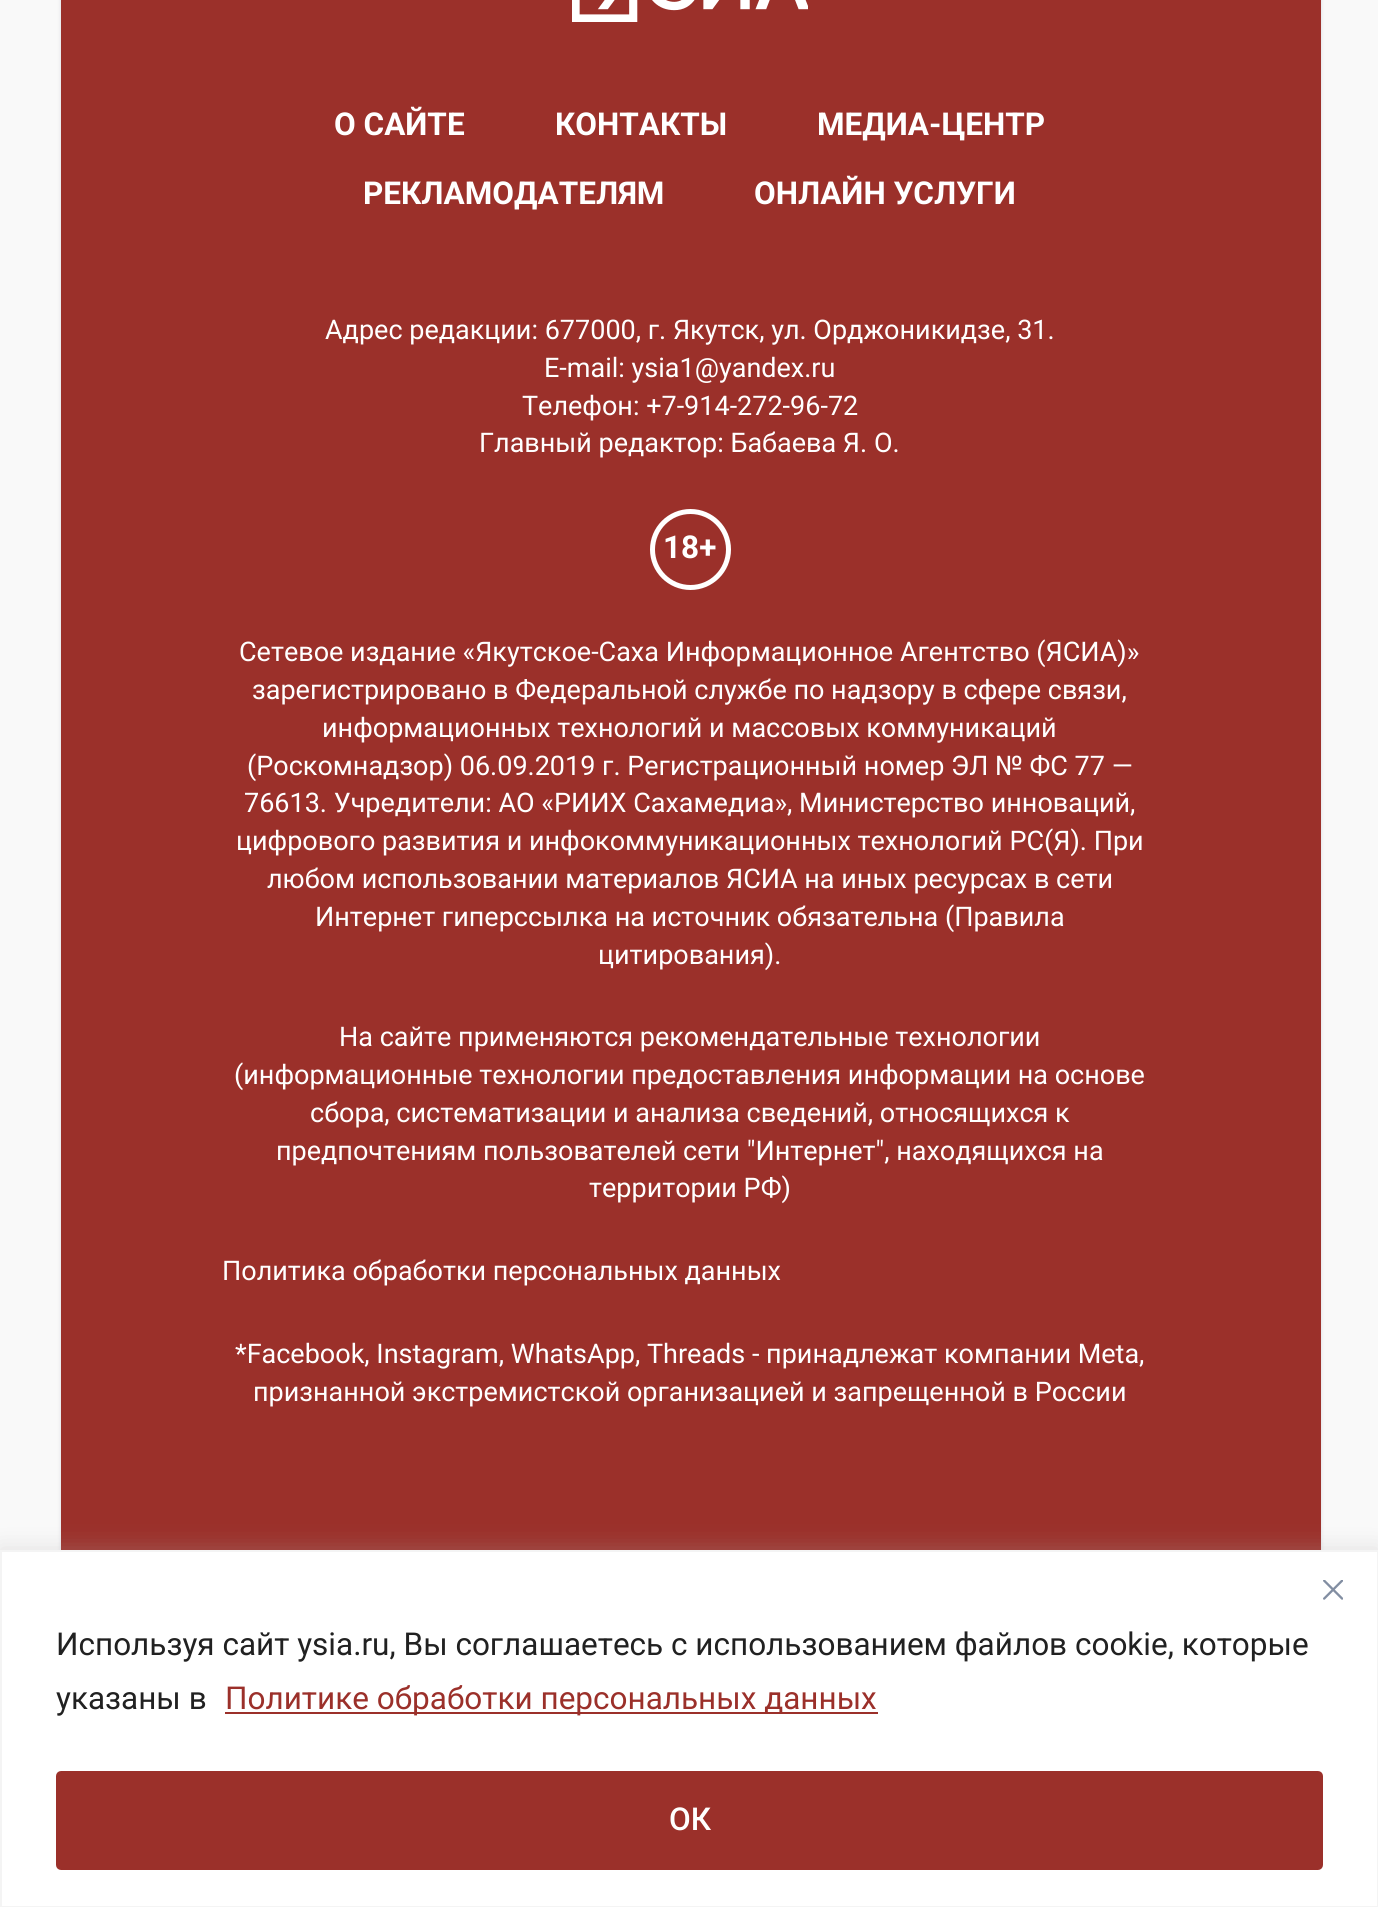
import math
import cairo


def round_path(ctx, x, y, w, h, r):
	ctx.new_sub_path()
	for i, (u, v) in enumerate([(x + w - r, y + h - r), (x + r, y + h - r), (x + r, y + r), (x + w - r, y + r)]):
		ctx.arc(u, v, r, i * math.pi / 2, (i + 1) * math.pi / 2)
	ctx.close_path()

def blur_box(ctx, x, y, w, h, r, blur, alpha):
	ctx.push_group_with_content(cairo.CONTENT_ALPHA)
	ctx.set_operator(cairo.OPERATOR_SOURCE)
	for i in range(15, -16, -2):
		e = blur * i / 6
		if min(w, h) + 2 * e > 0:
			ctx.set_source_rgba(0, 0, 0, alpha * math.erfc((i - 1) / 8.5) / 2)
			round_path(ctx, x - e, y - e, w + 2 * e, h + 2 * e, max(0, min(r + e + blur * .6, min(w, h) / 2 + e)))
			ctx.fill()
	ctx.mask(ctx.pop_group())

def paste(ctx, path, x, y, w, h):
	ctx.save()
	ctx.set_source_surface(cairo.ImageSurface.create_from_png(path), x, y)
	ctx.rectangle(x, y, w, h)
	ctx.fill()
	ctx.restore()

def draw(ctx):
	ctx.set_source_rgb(0.976, 0.976, 0.976)
	ctx.paint()
	ctx.set_source_rgb(0.161, 0.153, 0.349)
	blur_box(ctx, 61, -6, 1260, 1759, 0, 2, 0.15)
	ctx.set_source_rgb(0.608, 0.188, 0.165)
	ctx.rectangle(61, 0, 1260, 1550)
	ctx.fill()
	paste(ctx, 'media/1.png', 572, 0, 236, 22)
	ctx.select_font_face('Roboto', cairo.FONT_SLANT_NORMAL, cairo.FONT_WEIGHT_BOLD)
	ctx.set_font_size(31.5)
	ctx.set_source_rgb(1, 1, 1)
	for x, y, s in [
		(334, 135, 'О САЙТЕ'),
		(555, 135, 'КОНТАКТЫ'),
		(817, 135, 'МЕДИА-ЦЕНТР'),
		(363, 204, 'РЕКЛАМОДАТЕЛЯМ'),
		(754, 204, 'ОНЛАЙН УСЛУГИ'),
	]:
		ctx.move_to(x, y)
		ctx.show_text(s)
	ctx.select_font_face('Roboto')
	ctx.set_font_size(27)
	for x, y, s in [
		(325, 339, 'Адрес редакции: 677000, г. Якутск, ул. Орджоникидзе, 31.'),
		(544, 377, 'E-mail: ysia1@yandex.ru'),
		(522, 415, 'Телефон: +7-914-272-96-72'),
		(479, 452, 'Главный редактор: Бабаева Я. О.'),
	]:
		ctx.move_to(x, y)
		ctx.show_text(s)
	ctx.new_path()
	ctx.arc(690.5, 549.5, 38, 0, 2 * math.pi)
	ctx.set_line_width(5)
	ctx.stroke()
	ctx.select_font_face('Roboto', cairo.FONT_SLANT_NORMAL, cairo.FONT_WEIGHT_BOLD)
	ctx.set_font_size(31.5)
	ctx.move_to(663, 558)
	ctx.show_text('18+')
	ctx.select_font_face('Roboto')
	ctx.set_font_size(27)
	for x, y, s in [
		(239, 661, 'Сетевое издание «Якутское-Саха Информационное Агентство (ЯСИА)»'),
		(252, 699, 'зарегистрировано в Федеральной службе по надзору в сфере связи,'),
		(322, 737, 'информационных технологий и массовых коммуникаций'),
		(247, 775, '(Роскомнадзор) 06.09.2019 г. Регистрационный номер ЭЛ № ФС 77 —'),
		(244, 812, '76613. Учредители: АО «РИИХ Сахамедиа», Министерство инноваций,'),
		(236, 850, 'цифрового развития и инфокоммуникационных технологий РС(Я). При'),
		(267, 888, 'любом использовании материалов ЯСИА на иных ресурсах в сети'),
		(315, 926, 'Интернет гиперссылка на источник обязательна (Правила'),
		(598, 964, 'цитирования).'),
		(339, 1046, 'На сайте применяются рекомендательные технологии'),
		(234, 1084, '(информационные технологии предоставления информации на основе'),
		(310, 1122, 'сбора, систематизации и анализа сведений, относящихся к'),
		(276, 1160, 'предпочтениям пользователей сети "Интернет", находящихся на'),
		(589, 1197, 'территории РФ)'),
		(222, 1280, 'Политика обработки персональных данных'),
		(235, 1363, '*Facebook, Instagram, WhatsApp, Threads - принадлежат компании Meta,'),
		(253, 1401, 'признанной экстремистской организацией и запрещенной в России'),
	]:
		ctx.move_to(x, y)
		ctx.show_text(s)
	ctx.set_source_rgb(0.675, 0.671, 0.671)
	blur_box(ctx, 0, 1548, 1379, 358, 0, 11, 0.3)
	ctx.set_source_rgb(1, 1, 1)
	ctx.rectangle(1, 1551, 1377, 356)
	ctx.fill_preserve()
	ctx.set_source_rgb(0.957, 0.957, 0.957)
	ctx.set_line_width(2)
	ctx.stroke()
	paste(ctx, 'media/2.png', 1323, 1580, 20, 20)
	ctx.set_font_size(31.5)
	ctx.set_source_rgb(0.129, 0.129, 0.129)
	ctx.move_to(56, 1655)
	ctx.show_text('Используя сайт ysia.ru, Вы соглашаетесь с использованием файлов cookie, которые')
	ctx.move_to(56, 1709)
	ctx.show_text('указаны в')
	ctx.set_source_rgb(0.608, 0.188, 0.165)
	ctx.rectangle(225, 1712, 653, 2)
	ctx.fill()
	ctx.move_to(225, 1709)
	ctx.show_text('Политике обработки персональных данных')
	round_path(ctx, 58.5, 1773.5, 1262, 94, 2.5)
	ctx.fill_preserve()
	ctx.set_line_width(5)
	ctx.stroke()
	ctx.select_font_face('Roboto Medium')
	ctx.set_source_rgb(1, 1, 1)
	ctx.move_to(669, 1830)
	ctx.show_text('ОК')


surface = cairo.ImageSurface(cairo.FORMAT_RGB24, 1378, 1907)
ctx = cairo.Context(surface)
options = cairo.FontOptions()
options.set_hint_metrics(cairo.HINT_METRICS_OFF)
options.set_hint_style(cairo.HINT_STYLE_NONE)
ctx.set_font_options(options)
ctx.set_miter_limit(4)
draw(ctx)
surface.write_to_png('image.png')
